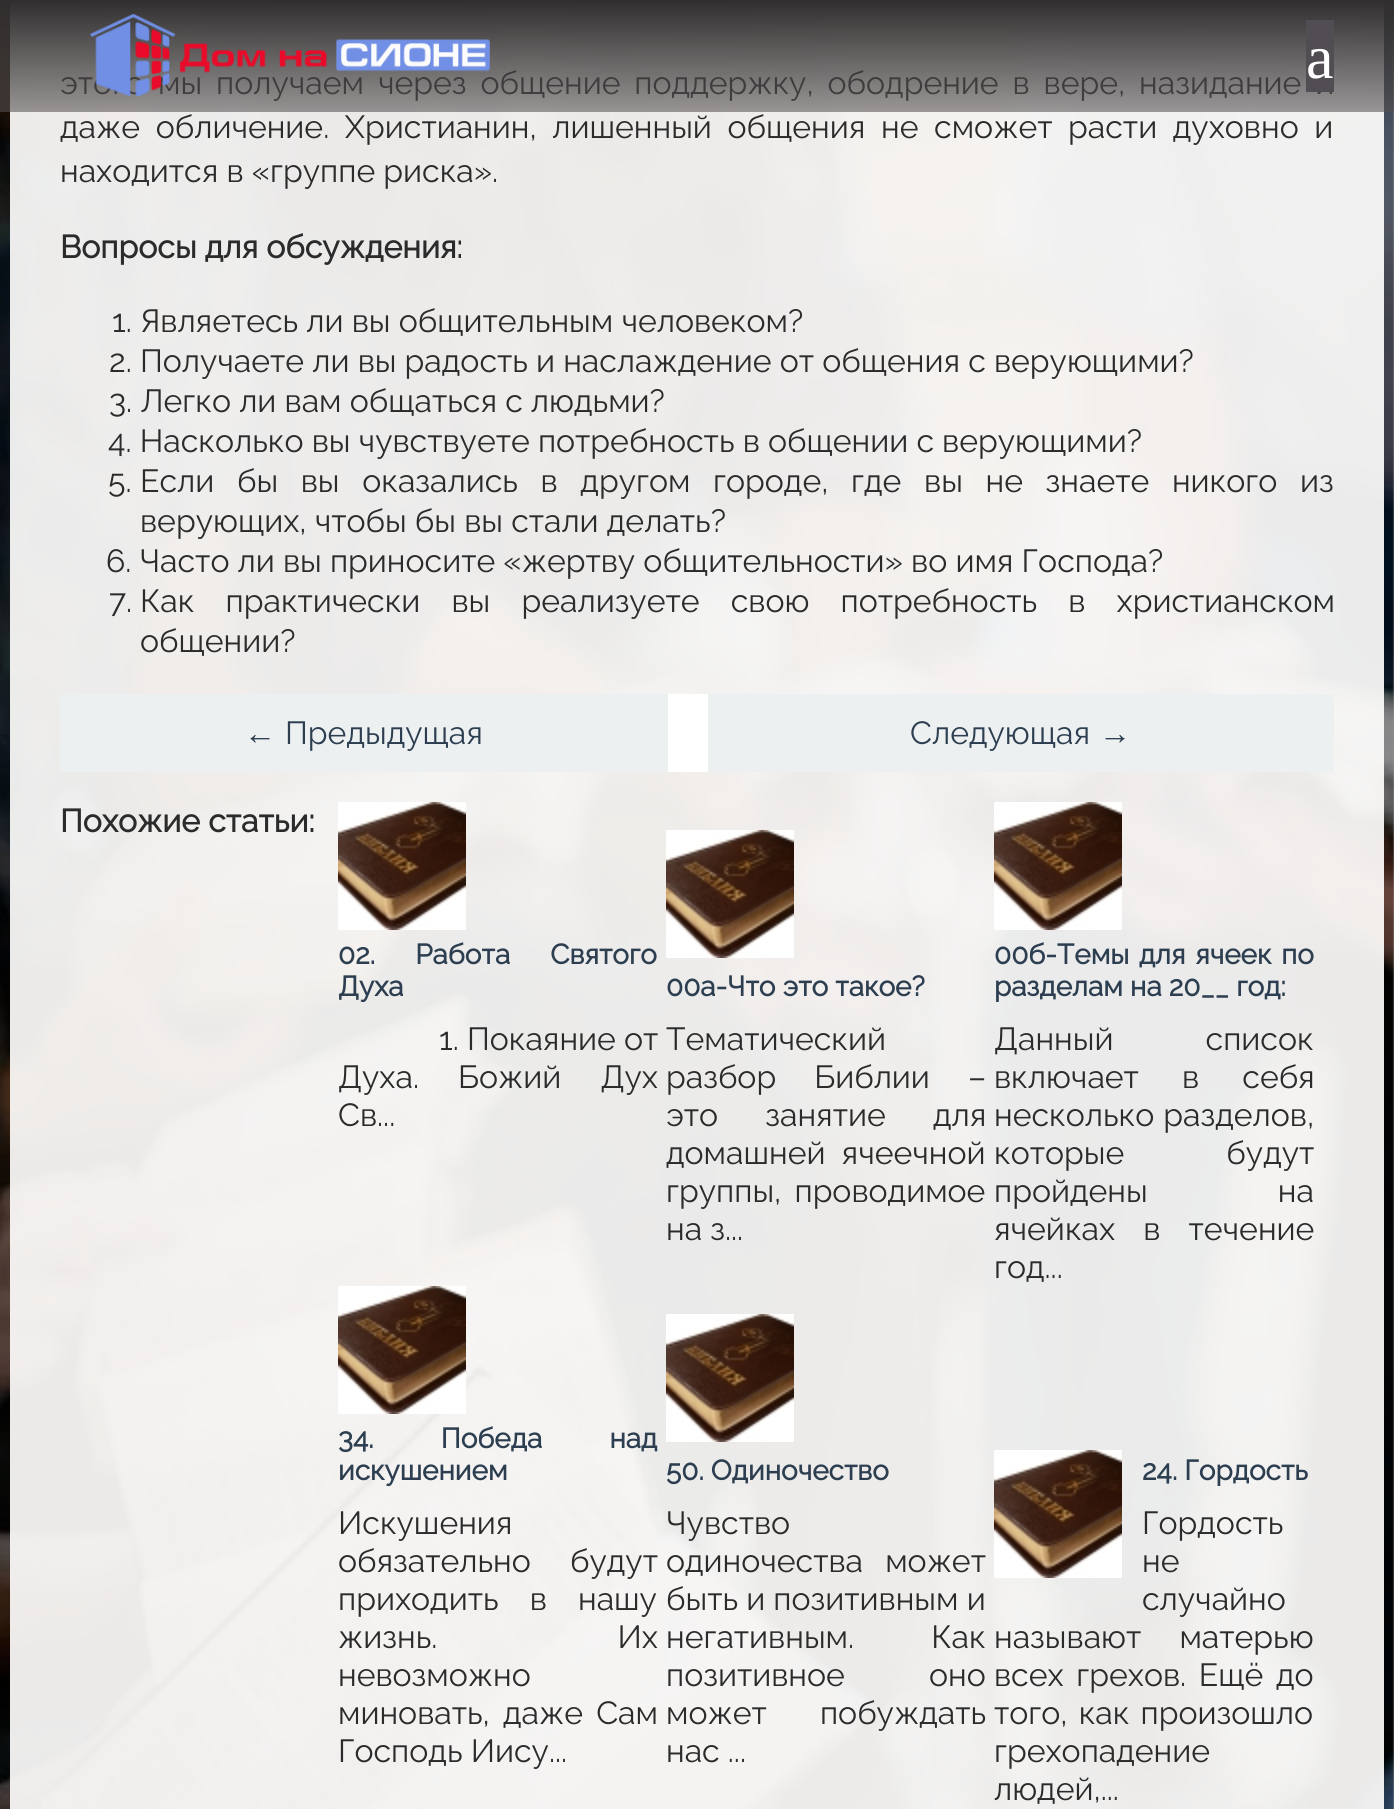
import math
import cairo


def write_spaced(ctx, x, y, s, letter, word):
	ctx.move_to(x, y)
	for ch in s:
		ctx.show_text(ch)
		ctx.rel_move_to(letter + word * (ch == ' '), 0)

def paste(ctx, path, x, y, w, h):
	ctx.save()
	ctx.set_source_surface(cairo.ImageSurface.create_from_png(path), x, y)
	ctx.rectangle(x, y, w, h)
	ctx.fill()
	ctx.restore()

def draw(ctx):
	ctx.set_source_rgb(0.58, 0.58, 0.58)
	ctx.paint()
	paste(ctx, 'media/1.png', 0, 1, 1394, 1808)
	ctx.select_font_face('Raleway Thin')
	ctx.set_font_size(32)
	ctx.set_source_rgb(0.169, 0.169, 0.169)
	write_spaced(ctx, 60, 94, 'этого мы получаем через общение поддержку, ободрение в вере, назидание и', 0, 5.75)
	gradient = cairo.LinearGradient(697, 0, 697, 112)
	gradient.add_color_stop_rgba(0, 0, 0, 0, 1)
	gradient.add_color_stop_rgba(1, 0, 0, 0, 0)
	ctx.set_source(gradient)
	ctx.rectangle(0, 0, 1394, 110)
	ctx.fill()
	ctx.set_source_rgba(0.333, 0.322, 0.318, 0.57)
	ctx.rectangle(0, 0, 1394, 112)
	ctx.fill()
	paste(ctx, 'media/2.png', 90, 14, 400, 82)
	ctx.set_source_rgb(0.322, 0.302, 0.322)
	ctx.rectangle(1306, 20, 28, 72)
	ctx.fill()
	ctx.select_font_face('Liberation Serif')
	ctx.set_font_size(62)
	ctx.set_source_rgb(1, 1, 1)
	ctx.move_to(1306, 78)
	ctx.show_text('a')
	ctx.select_font_face('Raleway Thin')
	ctx.set_font_size(32)
	ctx.set_source_rgb(0.169, 0.169, 0.169)
	write_spaced(ctx, 60, 138, 'даже обличение. Христианин, лишенный общения не сможет расти духовно и', 0, 7.5)
	ctx.move_to(60, 182)
	ctx.show_text('находится в «группе риска».')
	ctx.select_font_face('Raleway', cairo.FONT_SLANT_NORMAL, cairo.FONT_WEIGHT_BOLD)
	ctx.move_to(60, 258)
	ctx.show_text('Вопросы для обсуждения:')
	ctx.select_font_face('Raleway Thin')
	for x, y, s in [
		(112, 332, '1. Являетесь ли вы общительным человеком?'),
		(109, 372, '2. Получаете ли вы радость и наслаждение от общения с верующими?'),
		(109, 412, '3. Легко ли вам общаться с людьми?'),
		(108, 452, '4. Насколько вы чувствуете потребность в общении с верующими?'),
		(108, 492, '5.'),
	]:
		ctx.move_to(x, y)
		ctx.show_text(s)
	write_spaced(ctx, 140, 492, 'Если бы вы оказались в другом городе, где вы не знаете никого из', 0, 14.5)
	for x, y, s in [
		(140, 532, 'верующих, чтобы бы вы стали делать?'),
		(106, 572, '6. Часто ли вы приносите «жертву общительности» во имя Господа?'),
		(109, 612, '7.'),
	]:
		ctx.move_to(x, y)
		ctx.show_text(s)
	write_spaced(ctx, 140, 612, 'Как практически вы реализуете свою потребность в христианском', 0, 23)
	ctx.move_to(140, 652)
	ctx.show_text('общении?')
	ctx.set_source_rgb(0.925, 0.941, 0.945)
	ctx.rectangle(60, 694, 608, 78)
	ctx.fill()
	ctx.set_source_rgb(1, 1, 1)
	ctx.rectangle(668, 694, 40, 78)
	ctx.fill()
	ctx.select_font_face('Liberation Serif')
	ctx.set_source_rgb(0.173, 0.243, 0.314)
	ctx.move_to(244, 744)
	ctx.show_text('←')
	ctx.select_font_face('Raleway Thin')
	ctx.move_to(285, 744)
	ctx.show_text('Предыдущая')
	ctx.set_source_rgb(0.925, 0.941, 0.945)
	ctx.rectangle(708, 694, 626, 78)
	ctx.fill()
	ctx.set_source_rgb(0.173, 0.243, 0.314)
	ctx.move_to(910, 744)
	ctx.show_text('Следующая')
	ctx.select_font_face('Liberation Serif')
	ctx.move_to(1099, 744)
	ctx.show_text('→')
	ctx.select_font_face('Raleway', cairo.FONT_SLANT_NORMAL, cairo.FONT_WEIGHT_BOLD)
	ctx.set_source_rgb(0.169, 0.169, 0.169)
	ctx.move_to(60, 832)
	ctx.show_text('Похожие статьи:')
	paste(ctx, 'media/3.png', 338, 802, 128, 128)
	ctx.set_font_size(28)
	ctx.set_source_rgb(0.173, 0.243, 0.314)
	write_spaced(ctx, 338, 964, '02. Работа Святого', 0, 33)
	ctx.move_to(338, 996)
	ctx.show_text('Духа')
	ctx.select_font_face('Raleway Thin')
	ctx.set_font_size(32)
	ctx.set_source_rgb(0.169, 0.169, 0.169)
	ctx.move_to(439, 1050)
	ctx.show_text('1. Покаяние от')
	write_spaced(ctx, 338, 1088, 'Духа. Божий Дух', 0, 31)
	ctx.move_to(338, 1126)
	ctx.show_text('Св...')
	paste(ctx, 'media/3.png', 666, 830, 128, 128)
	ctx.select_font_face('Raleway', cairo.FONT_SLANT_NORMAL, cairo.FONT_WEIGHT_BOLD)
	ctx.set_font_size(28)
	ctx.set_source_rgb(0.173, 0.243, 0.314)
	ctx.move_to(666, 996)
	ctx.show_text('00а-Что это такое?')
	ctx.select_font_face('Raleway Thin')
	ctx.set_font_size(32)
	ctx.set_source_rgb(0.169, 0.169, 0.169)
	ctx.move_to(666, 1050)
	ctx.show_text('Тематический')
	write_spaced(ctx, 666, 1088, 'разбор Библии –', 0, 30)
	write_spaced(ctx, 666, 1126, 'это занятие для', 0, 39)
	write_spaced(ctx, 666, 1164, 'домашней ячеечной', 0, 8)
	write_spaced(ctx, 666, 1202, 'группы, проводимое', 0, 5)
	ctx.move_to(666, 1240)
	ctx.show_text('на з...')
	paste(ctx, 'media/3.png', 994, 802, 128, 128)
	ctx.select_font_face('Raleway', cairo.FONT_SLANT_NORMAL, cairo.FONT_WEIGHT_BOLD)
	ctx.set_font_size(28)
	ctx.set_source_rgb(0.173, 0.243, 0.314)
	write_spaced(ctx, 994, 964, '00б-Темы для ячеек по', 0, 2.5)
	ctx.move_to(994, 996)
	ctx.show_text('разделам на 20__ год:')
	ctx.select_font_face('Raleway Thin')
	ctx.set_font_size(32)
	ctx.set_source_rgb(0.169, 0.169, 0.169)
	write_spaced(ctx, 994, 1050, 'Данный список', 0, 84)
	write_spaced(ctx, 994, 1088, 'включает в себя', 0, 35)
	write_spaced(ctx, 994, 1126, 'несколько разделов,', 0, 1)
	write_spaced(ctx, 994, 1164, 'которые будут', 0, 94)
	write_spaced(ctx, 994, 1202, 'пройдены на', 0, 122)
	write_spaced(ctx, 994, 1240, 'ячейках в течение', 0, 20)
	ctx.move_to(994, 1278)
	ctx.show_text('год...')
	paste(ctx, 'media/3.png', 338, 1286, 128, 128)
	ctx.select_font_face('Raleway', cairo.FONT_SLANT_NORMAL, cairo.FONT_WEIGHT_BOLD)
	ctx.set_font_size(28)
	ctx.set_source_rgb(0.173, 0.243, 0.314)
	write_spaced(ctx, 338, 1448, '34. Победа над', 0, 60)
	ctx.move_to(338, 1480)
	ctx.show_text('искушением')
	ctx.select_font_face('Raleway Thin')
	ctx.set_font_size(32)
	ctx.set_source_rgb(0.169, 0.169, 0.169)
	ctx.move_to(338, 1534)
	ctx.show_text('Искушения')
	write_spaced(ctx, 338, 1572, 'обязательно будут', 0, 31)
	write_spaced(ctx, 338, 1610, 'приходить в нашу', 0, 23)
	write_spaced(ctx, 338, 1648, 'жизнь. Их', 0, 172)
	ctx.move_to(338, 1686)
	ctx.show_text('невозможно')
	write_spaced(ctx, 338, 1724, 'миновать, даже Сам', 0, 5)
	ctx.move_to(338, 1762)
	ctx.show_text('Господь Иису...')
	paste(ctx, 'media/3.png', 666, 1314, 128, 128)
	ctx.select_font_face('Raleway', cairo.FONT_SLANT_NORMAL, cairo.FONT_WEIGHT_BOLD)
	ctx.set_font_size(28)
	ctx.set_source_rgb(0.173, 0.243, 0.314)
	ctx.move_to(666, 1480)
	ctx.show_text('50. Одиночество')
	ctx.select_font_face('Raleway Thin')
	ctx.set_font_size(32)
	ctx.set_source_rgb(0.169, 0.169, 0.169)
	ctx.move_to(666, 1534)
	ctx.show_text('Чувство')
	write_spaced(ctx, 666, 1572, 'одиночества может', 0, 14)
	ctx.move_to(666, 1610)
	ctx.show_text('быть и позитивным и')
	write_spaced(ctx, 666, 1648, 'негативным. Как', 0, 69)
	write_spaced(ctx, 666, 1686, 'позитивное оно', 0, 76)
	write_spaced(ctx, 666, 1724, 'может побуждать', 0, 45)
	ctx.move_to(666, 1762)
	ctx.show_text('нас ...')
	paste(ctx, 'media/3.png', 994, 1450, 128, 128)
	ctx.select_font_face('Raleway', cairo.FONT_SLANT_NORMAL, cairo.FONT_WEIGHT_BOLD)
	ctx.set_font_size(28)
	ctx.set_source_rgb(0.173, 0.243, 0.314)
	ctx.move_to(1142, 1480)
	ctx.show_text('24. Гордость')
	ctx.select_font_face('Raleway Thin')
	ctx.set_font_size(32)
	ctx.set_source_rgb(0.169, 0.169, 0.169)
	for x, y, s in [
		(1142, 1534, 'Гордость'),
		(1142, 1572, 'не'),
		(1142, 1610, 'случайно'),
	]:
		ctx.move_to(x, y)
		ctx.show_text(s)
	write_spaced(ctx, 994, 1648, 'называют матерью', 0, 30)
	write_spaced(ctx, 994, 1686, 'всех грехов. Ещё до', 0, 4.5)
	write_spaced(ctx, 994, 1724, 'того, как произошло', 0, 3)
	ctx.move_to(994, 1762)
	ctx.show_text('грехопадение')
	ctx.move_to(994, 1800)
	ctx.show_text('людей,...')


surface = cairo.ImageSurface(cairo.FORMAT_RGB24, 1394, 1809)
ctx = cairo.Context(surface)
options = cairo.FontOptions()
options.set_hint_metrics(cairo.HINT_METRICS_OFF)
options.set_hint_style(cairo.HINT_STYLE_NONE)
ctx.set_font_options(options)
ctx.set_miter_limit(4)
draw(ctx)
surface.write_to_png('image.png')
